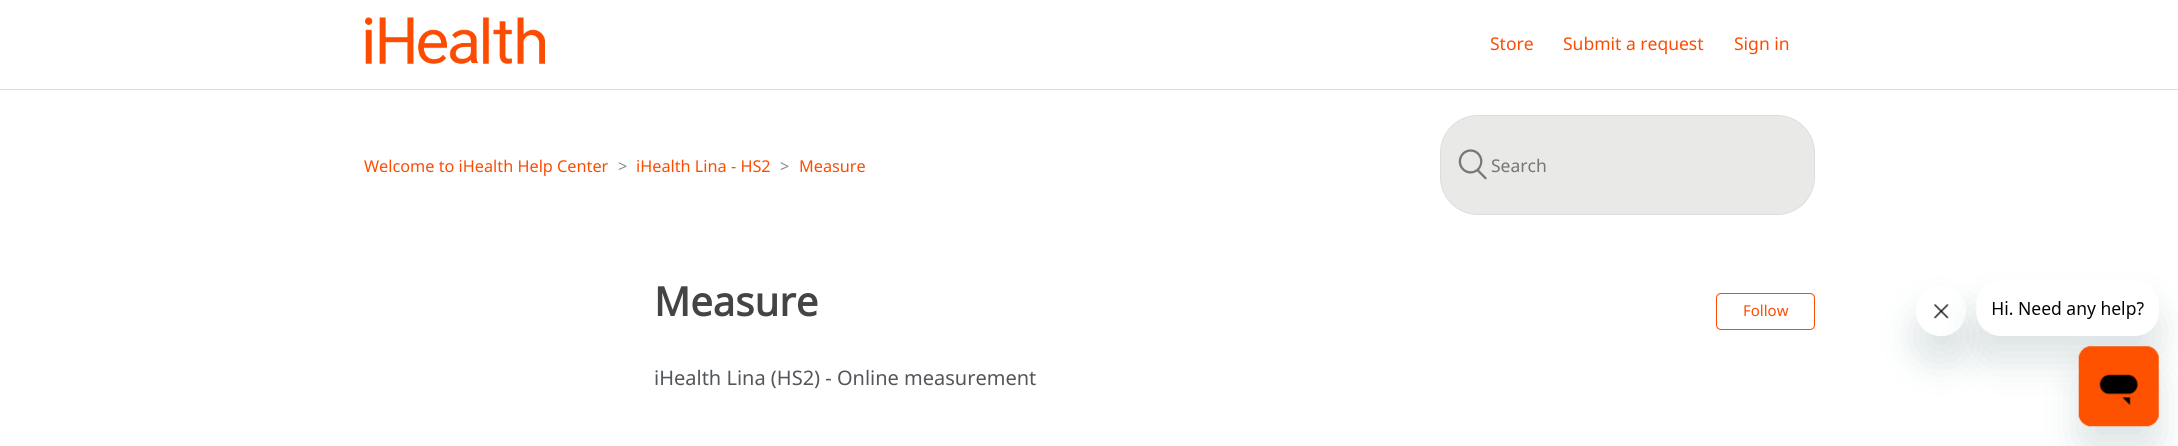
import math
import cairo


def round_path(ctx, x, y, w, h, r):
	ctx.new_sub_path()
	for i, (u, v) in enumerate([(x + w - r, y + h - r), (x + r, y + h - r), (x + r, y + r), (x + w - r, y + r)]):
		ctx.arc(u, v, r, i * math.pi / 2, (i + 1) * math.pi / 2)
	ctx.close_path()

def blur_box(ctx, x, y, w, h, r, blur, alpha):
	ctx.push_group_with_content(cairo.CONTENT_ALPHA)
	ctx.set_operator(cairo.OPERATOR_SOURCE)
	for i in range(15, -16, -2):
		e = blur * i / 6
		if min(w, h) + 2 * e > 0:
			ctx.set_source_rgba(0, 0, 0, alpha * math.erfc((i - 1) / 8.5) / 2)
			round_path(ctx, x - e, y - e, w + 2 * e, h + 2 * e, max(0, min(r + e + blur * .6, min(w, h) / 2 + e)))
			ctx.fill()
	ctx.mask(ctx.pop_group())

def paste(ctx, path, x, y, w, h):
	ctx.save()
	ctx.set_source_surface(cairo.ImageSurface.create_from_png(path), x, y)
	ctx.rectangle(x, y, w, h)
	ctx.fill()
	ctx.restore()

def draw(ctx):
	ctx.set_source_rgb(1, 1, 1)
	ctx.paint()
	paste(ctx, 'media/1.png', 365, 17, 180, 47)
	ctx.select_font_face('Noto Sans')
	ctx.set_font_size(17.5)
	ctx.set_source_rgb(0.988, 0.298, 0.008)
	for x, y, s in [
		(1490, 50, 'Store'),
		(1563, 50, 'Submit a request'),
		(1734, 50, 'Sign in'),
	]:
		ctx.move_to(x, y)
		ctx.show_text(s)
	ctx.set_source_rgb(0.867, 0.867, 0.867)
	ctx.rectangle(0, 89, 2178, 1)
	ctx.fill()
	ctx.set_font_size(16.25)
	ctx.set_source_rgb(0.988, 0.298, 0.008)
	ctx.move_to(364, 172)
	ctx.show_text('Welcome to iHealth Help Center')
	ctx.set_source_rgb(0.522, 0.537, 0.557)
	ctx.move_to(618, 172)
	ctx.show_text('>')
	ctx.set_source_rgb(0.988, 0.298, 0.008)
	ctx.move_to(636, 172)
	ctx.show_text('iHealth Lina - HS2')
	ctx.set_source_rgb(0.522, 0.537, 0.557)
	ctx.move_to(780, 172)
	ctx.show_text('>')
	ctx.set_source_rgb(0.988, 0.298, 0.008)
	ctx.move_to(799, 172)
	ctx.show_text('Measure')
	ctx.set_source_rgb(0.914, 0.914, 0.91)
	round_path(ctx, 1440.5, 115.5, 374, 99, 37.5)
	ctx.fill_preserve()
	ctx.set_source_rgb(0.867, 0.867, 0.867)
	ctx.set_line_width(1)
	ctx.stroke()
	paste(ctx, 'media/2.png', 1458, 149, 29, 31)
	ctx.set_font_size(17.5)
	ctx.set_source_rgb(0.459, 0.459, 0.459)
	ctx.move_to(1491, 172)
	ctx.show_text('Search')
	ctx.select_font_face('Noto Sans', cairo.FONT_SLANT_NORMAL, cairo.FONT_WEIGHT_BOLD)
	ctx.set_font_size(40)
	ctx.set_source_rgb(0.267, 0.267, 0.267)
	ctx.move_to(654, 316)
	ctx.show_text('Measure')
	round_path(ctx, 1716.5, 293.5, 98, 36, 4.5)
	ctx.set_source_rgb(0.988, 0.298, 0.008)
	ctx.stroke()
	ctx.select_font_face('Noto Sans')
	ctx.set_font_size(15)
	ctx.move_to(1743, 316)
	ctx.show_text('Follow')
	ctx.set_font_size(20)
	ctx.set_source_rgb(0.325, 0.337, 0.353)
	ctx.move_to(654, 385)
	ctx.show_text('iHealth Lina (HS2) - Online measurement')
	ctx.save()
	ctx.set_fill_rule(cairo.FILL_RULE_EVEN_ODD)
	ctx.new_path()
	ctx.move_to(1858, 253)
	ctx.line_to(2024, 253)
	ctx.line_to(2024, 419)
	ctx.line_to(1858, 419)
	ctx.close_path()
	ctx.move_to(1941, 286)
	ctx.curve_to(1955, 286, 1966, 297, 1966, 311)
	ctx.curve_to(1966, 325, 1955, 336, 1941, 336)
	ctx.curve_to(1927, 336, 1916, 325, 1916, 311)
	ctx.curve_to(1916, 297, 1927, 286, 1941, 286)
	ctx.close_path()
	ctx.clip()
	ctx.set_source_rgb(0.09, 0.286, 0.302)
	blur_box(ctx, 1916, 311, 50, 50, 25, 19, 0.15)
	ctx.restore()
	paste(ctx, 'media/4.png', 1934, 304, 15, 15)
	ctx.save()
	ctx.set_fill_rule(cairo.FILL_RULE_EVEN_ODD)
	ctx.new_path()
	ctx.move_to(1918, 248)
	ctx.line_to(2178, 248)
	ctx.line_to(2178, 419)
	ctx.line_to(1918, 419)
	ctx.close_path()
	ctx.move_to(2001, 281)
	ctx.line_to(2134, 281)
	ctx.curve_to(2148, 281, 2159, 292, 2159, 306)
	ctx.line_to(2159, 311)
	ctx.curve_to(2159, 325, 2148, 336, 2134, 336)
	ctx.line_to(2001, 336)
	ctx.curve_to(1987, 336, 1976, 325, 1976, 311)
	ctx.line_to(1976, 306)
	ctx.curve_to(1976, 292, 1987, 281, 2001, 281)
	ctx.close_path()
	ctx.clip()
	ctx.set_source_rgb(0.09, 0.286, 0.302)
	blur_box(ctx, 1976, 306, 183, 55, 25, 19, 0.15)
	ctx.restore()
	paste(ctx, 'media/3.png', 1977, 301, 167, 29)
	ctx.set_source_rgb(0.09, 0.286, 0.302)
	blur_box(ctx, 2079, 371, 80, 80, 13, 19, 0.15)
	paste(ctx, 'media/5.png', 2078, 346, 81, 81)


surface = cairo.ImageSurface(cairo.FORMAT_RGB24, 2178, 446)
ctx = cairo.Context(surface)
options = cairo.FontOptions()
options.set_hint_metrics(cairo.HINT_METRICS_OFF)
options.set_hint_style(cairo.HINT_STYLE_NONE)
ctx.set_font_options(options)
ctx.set_miter_limit(4)
draw(ctx)
surface.write_to_png('image.png')
